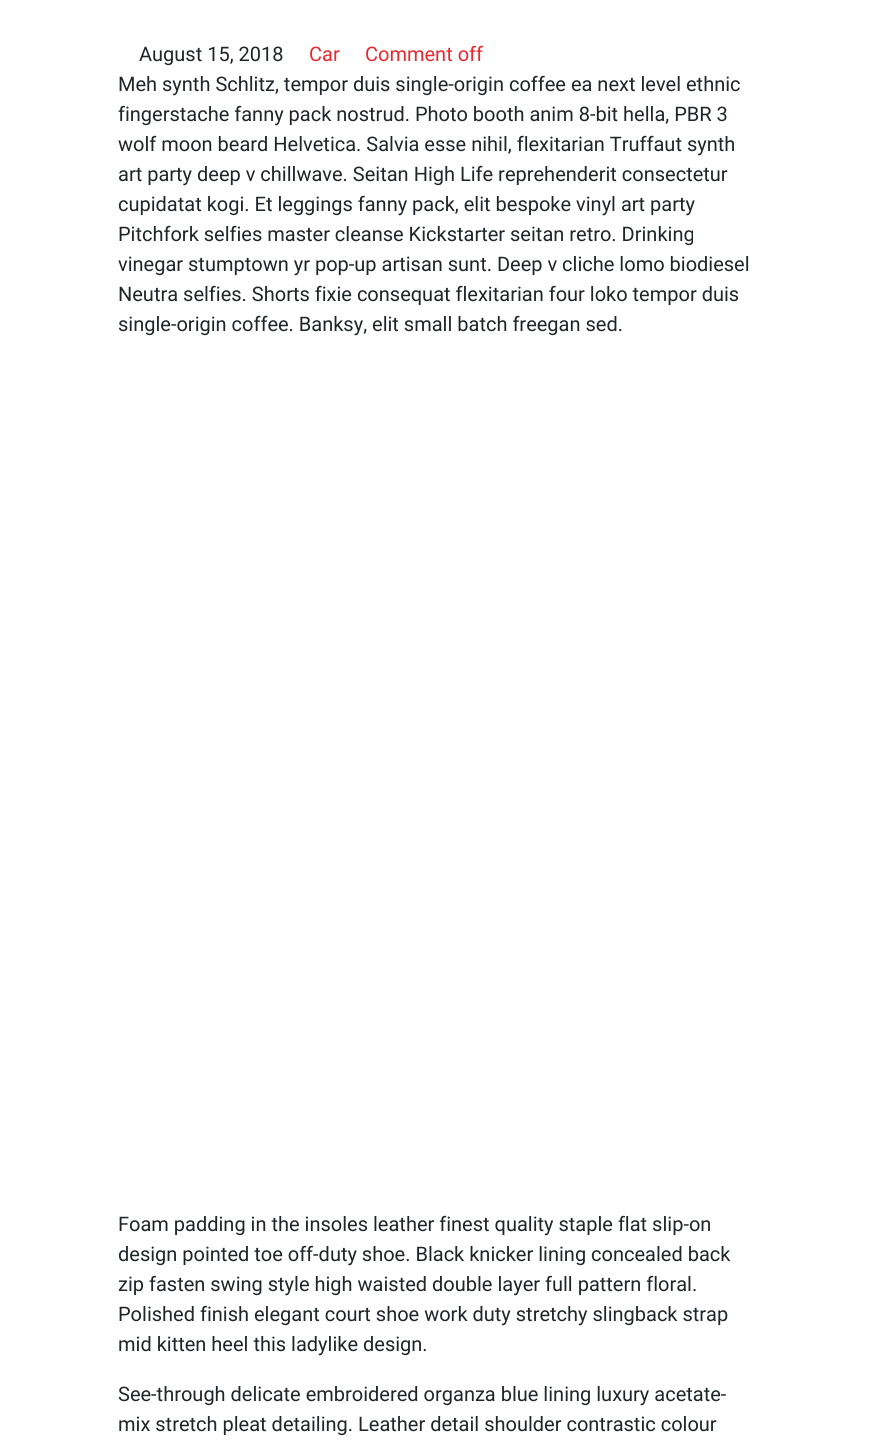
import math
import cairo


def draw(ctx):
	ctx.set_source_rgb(1, 1, 1)
	ctx.paint()
	ctx.select_font_face('Roboto')
	ctx.set_font_size(20)
	ctx.set_source_rgb(0.129, 0.145, 0.161)
	ctx.move_to(139, 61)
	ctx.show_text('August 15, 2018')
	ctx.set_source_rgb(0.91, 0.161, 0.188)
	ctx.move_to(309, 61)
	ctx.show_text('Car')
	ctx.move_to(365, 61)
	ctx.show_text('Comment off')
	ctx.set_source_rgb(0.129, 0.145, 0.161)
	for x, y, s in [
		(118, 91, 'Meh synth Schlitz, tempor duis single-origin coffee ea next level ethnic'),
		(118, 121, 'fingerstache fanny pack nostrud. Photo booth anim 8-bit hella, PBR 3'),
		(118, 151, 'wolf moon beard Helvetica. Salvia esse nihil, flexitarian Truffaut synth'),
		(118, 181, 'art party deep v chillwave. Seitan High Life reprehenderit consectetur'),
		(118, 211, 'cupidatat kogi. Et leggings fanny pack, elit bespoke vinyl art party'),
		(118, 241, 'Pitchfork selfies master cleanse Kickstarter seitan retro. Drinking'),
		(118, 271, 'vinegar stumptown yr pop-up artisan sunt. Deep v cliche lomo biodiesel'),
		(118, 301, 'Neutra selfies. Shorts fixie consequat flexitarian four loko tempor duis'),
		(118, 331, 'single-origin coffee. Banksy, elit small batch freegan sed.'),
		(118, 1231, 'Foam padding in the insoles leather finest quality staple flat slip-on'),
		(118, 1261, 'design pointed toe off-duty shoe. Black knicker lining concealed back'),
		(118, 1291, 'zip fasten swing style high waisted double layer full pattern floral.'),
		(118, 1321, 'Polished finish elegant court shoe work duty stretchy slingback strap'),
		(118, 1351, 'mid kitten heel this ladylike design.'),
		(118, 1401, 'See-through delicate embroidered organza blue lining luxury acetate-'),
		(118, 1431, 'mix stretch pleat detailing. Leather detail shoulder contrastic colour'),
	]:
		ctx.move_to(x, y)
		ctx.show_text(s)


surface = cairo.ImageSurface(cairo.FORMAT_RGB24, 873, 1442)
ctx = cairo.Context(surface)
options = cairo.FontOptions()
options.set_hint_metrics(cairo.HINT_METRICS_OFF)
options.set_hint_style(cairo.HINT_STYLE_NONE)
ctx.set_font_options(options)
ctx.set_miter_limit(4)
draw(ctx)
surface.write_to_png('image.png')
